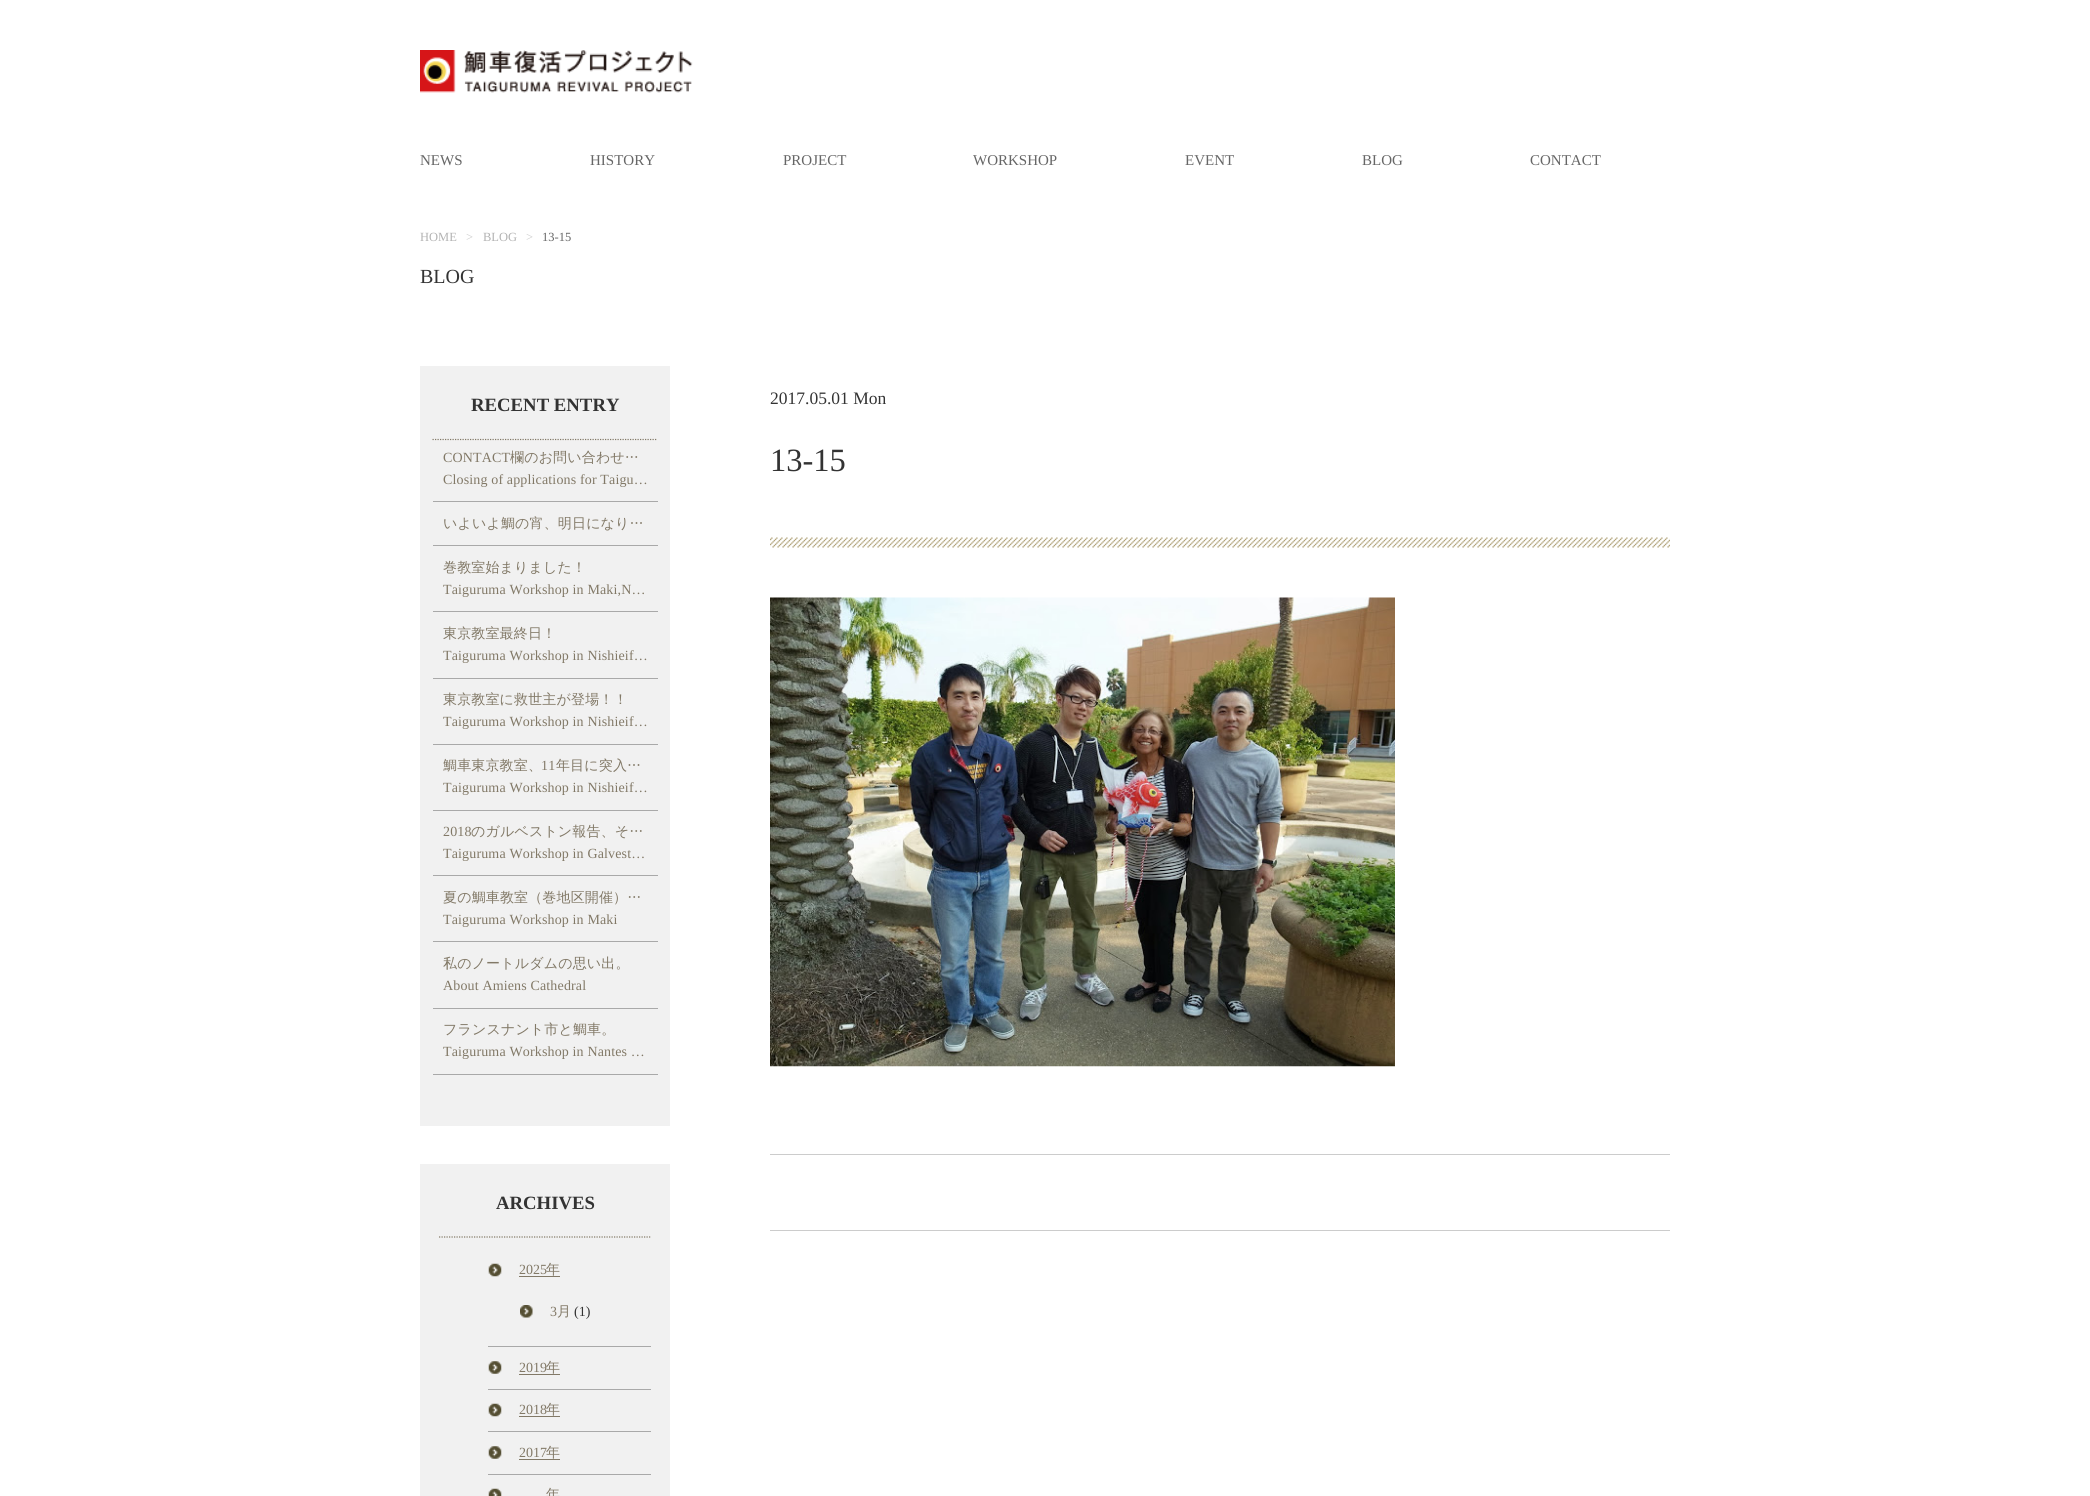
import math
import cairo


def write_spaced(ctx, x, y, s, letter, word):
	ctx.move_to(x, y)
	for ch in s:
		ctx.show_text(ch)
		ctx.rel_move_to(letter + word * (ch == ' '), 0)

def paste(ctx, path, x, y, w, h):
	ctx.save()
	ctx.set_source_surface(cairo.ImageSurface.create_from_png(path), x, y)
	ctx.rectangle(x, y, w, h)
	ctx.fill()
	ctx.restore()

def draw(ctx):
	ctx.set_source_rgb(1, 1, 1)
	ctx.paint()
	paste(ctx, 'media/1.png', 420, 50, 273, 43)
	ctx.select_font_face('Liberation Serif')
	ctx.set_font_size(15)
	ctx.set_source_rgb(0.4, 0.4, 0.4)
	for x, y, s in [
		(420, 165, 'NEWS'),
		(590, 165, 'HISTORY'),
		(783, 165, 'PROJECT'),
		(973, 165, 'WORKSHOP'),
		(1185, 165, 'EVENT'),
		(1362, 165, 'BLOG'),
		(1530, 165, 'CONTACT'),
	]:
		ctx.move_to(x, y)
		ctx.show_text(s)
	ctx.set_font_size(12.5)
	ctx.set_source_rgb(0.702, 0.702, 0.702)
	ctx.move_to(420, 241)
	ctx.show_text('HOME')
	ctx.set_source_rgb(0.8, 0.8, 0.8)
	ctx.move_to(466, 241)
	ctx.show_text('>')
	ctx.set_source_rgb(0.702, 0.702, 0.702)
	ctx.move_to(483, 241)
	ctx.show_text('BLOG')
	ctx.set_source_rgb(0.8, 0.8, 0.8)
	ctx.move_to(526, 241)
	ctx.show_text('>')
	ctx.set_source_rgb(0.4, 0.4, 0.4)
	ctx.move_to(542, 241)
	ctx.show_text('13-15')
	ctx.set_font_size(20)
	ctx.set_source_rgb(0.2, 0.2, 0.2)
	ctx.move_to(420, 283)
	ctx.show_text('BLOG')
	ctx.set_source_rgb(0.945, 0.945, 0.945)
	ctx.rectangle(420, 366, 250, 760)
	ctx.fill()
	ctx.new_path()
	ctx.move_to(432.5, 439.5)
	ctx.line_to(657.5, 439.5)
	ctx.set_source_rgb(0.51, 0.475, 0.404)
	ctx.set_line_width(1.2)
	ctx.set_dash([1.25, 1.25])
	ctx.stroke()
	ctx.select_font_face('Liberation Serif', cairo.FONT_SLANT_NORMAL, cairo.FONT_WEIGHT_BOLD)
	ctx.set_font_size(18.75)
	ctx.set_source_rgb(0.2, 0.2, 0.2)
	ctx.move_to(471, 411)
	ctx.show_text('RECENT ENTRY')
	ctx.set_source_rgb(0.663, 0.663, 0.663)
	ctx.rectangle(433, 501, 225, 1)
	ctx.fill()
	ctx.select_font_face('Liberation Serif')
	ctx.set_font_size(14)
	ctx.set_source_rgb(0.51, 0.475, 0.404)
	write_spaced(ctx, 443, 462, 'CONTACT', 0.15, 0)
	ctx.select_font_face('WenQuanYi Zen Hei Medium')
	write_spaced(ctx, 510, 462, '欄のお問い合わせ…', 0.15, 0)
	ctx.select_font_face('Liberation Serif')
	write_spaced(ctx, 443, 484, 'Closing of applications for Taigu…', 0.15, 0)
	ctx.set_source_rgb(0.663, 0.663, 0.663)
	ctx.rectangle(433, 545, 225, 1)
	ctx.fill()
	ctx.select_font_face('WenQuanYi Zen Hei Medium')
	ctx.set_source_rgb(0.51, 0.475, 0.404)
	write_spaced(ctx, 443, 528, 'いよいよ鯛の宵、明日になり…', 0.15, 0)
	ctx.set_source_rgb(0.663, 0.663, 0.663)
	ctx.rectangle(433, 611, 225, 1)
	ctx.fill()
	ctx.set_source_rgb(0.51, 0.475, 0.404)
	write_spaced(ctx, 443, 572, '巻教室始まりました！', 0.15, 0)
	ctx.select_font_face('Liberation Serif')
	write_spaced(ctx, 443, 594, 'Taiguruma Workshop in Maki,N…', 0.15, 0)
	ctx.set_source_rgb(0.663, 0.663, 0.663)
	ctx.rectangle(433, 678, 225, 1)
	ctx.fill()
	ctx.select_font_face('WenQuanYi Zen Hei Medium')
	ctx.set_source_rgb(0.51, 0.475, 0.404)
	write_spaced(ctx, 443, 638, '東京教室最終日！', 0.15, 0)
	ctx.select_font_face('Liberation Serif')
	write_spaced(ctx, 443, 660, 'Taiguruma Workshop in Nishieif…', 0.15, 0)
	ctx.set_source_rgb(0.663, 0.663, 0.663)
	ctx.rectangle(433, 744, 225, 1)
	ctx.fill()
	ctx.select_font_face('WenQuanYi Zen Hei Medium')
	ctx.set_source_rgb(0.51, 0.475, 0.404)
	write_spaced(ctx, 443, 704, '東京教室に救世主が登場！！', 0.15, 0)
	ctx.select_font_face('Liberation Serif')
	write_spaced(ctx, 443, 726, 'Taiguruma Workshop in Nishieif…', 0.15, 0)
	ctx.set_source_rgb(0.663, 0.663, 0.663)
	ctx.rectangle(433, 810, 225, 1)
	ctx.fill()
	ctx.select_font_face('WenQuanYi Zen Hei Medium')
	ctx.set_source_rgb(0.51, 0.475, 0.404)
	write_spaced(ctx, 443, 770, '鯛車東京教室、', 0.15, 0)
	ctx.select_font_face('Liberation Serif')
	write_spaced(ctx, 541, 770, '11', 0.15, 0)
	ctx.select_font_face('WenQuanYi Zen Hei Medium')
	write_spaced(ctx, 556, 770, '年目に突入…', 0.15, 0)
	ctx.select_font_face('Liberation Serif')
	write_spaced(ctx, 443, 792, 'Taiguruma Workshop in Nishieif…', 0.15, 0)
	ctx.set_source_rgb(0.663, 0.663, 0.663)
	ctx.rectangle(433, 875, 225, 1)
	ctx.fill()
	ctx.set_source_rgb(0.51, 0.475, 0.404)
	write_spaced(ctx, 443, 836, '2018', 0.15, 0)
	ctx.select_font_face('WenQuanYi Zen Hei Medium')
	write_spaced(ctx, 471, 836, 'のガルベストン報告、そ…', 0.15, 0)
	ctx.select_font_face('Liberation Serif')
	write_spaced(ctx, 443, 858, 'Taiguruma Workshop in Galvest…', 0.15, 0)
	ctx.set_source_rgb(0.663, 0.663, 0.663)
	ctx.rectangle(433, 941, 225, 1)
	ctx.fill()
	ctx.select_font_face('WenQuanYi Zen Hei Medium')
	ctx.set_source_rgb(0.51, 0.475, 0.404)
	write_spaced(ctx, 443, 902, '夏の鯛車教室（巻地区開催）…', 0.15, 0)
	ctx.select_font_face('Liberation Serif')
	write_spaced(ctx, 443, 924, 'Taiguruma Workshop in Maki', 0.15, 0)
	ctx.set_source_rgb(0.663, 0.663, 0.663)
	ctx.rectangle(433, 1008, 225, 1)
	ctx.fill()
	ctx.select_font_face('WenQuanYi Zen Hei Medium')
	ctx.set_source_rgb(0.51, 0.475, 0.404)
	write_spaced(ctx, 443, 968, '私のノートルダムの思い出。', 0.15, 0)
	ctx.select_font_face('Liberation Serif')
	write_spaced(ctx, 443, 990, 'About Amiens Cathedral', 0.15, 0)
	ctx.set_source_rgb(0.663, 0.663, 0.663)
	ctx.rectangle(433, 1074, 225, 1)
	ctx.fill()
	ctx.select_font_face('WenQuanYi Zen Hei Medium')
	ctx.set_source_rgb(0.51, 0.475, 0.404)
	write_spaced(ctx, 443, 1034, 'フランスナント市と鯛車。', 0.15, 0)
	ctx.select_font_face('Liberation Serif')
	write_spaced(ctx, 443, 1056, 'Taiguruma Workshop in Nantes …', 0.15, 0)
	ctx.set_source_rgb(0.945, 0.945, 0.945)
	ctx.rectangle(420, 1164, 250, 332)
	ctx.fill()
	ctx.new_path()
	ctx.move_to(439, 1237)
	ctx.line_to(651, 1237)
	ctx.set_source_rgb(0.51, 0.475, 0.404)
	ctx.stroke()
	ctx.select_font_face('Liberation Serif', cairo.FONT_SLANT_NORMAL, cairo.FONT_WEIGHT_BOLD)
	ctx.set_font_size(18.75)
	ctx.set_source_rgb(0.2, 0.2, 0.2)
	ctx.move_to(496, 1209)
	ctx.show_text('ARCHIVES')
	paste(ctx, 'media/2.png', 488, 1263, 14, 14)
	ctx.set_source_rgb(0.663, 0.663, 0.663)
	ctx.rectangle(488, 1346, 163, 1)
	ctx.fill()
	ctx.select_font_face('Liberation Serif')
	ctx.set_font_size(14)
	ctx.set_source_rgb(0.51, 0.475, 0.404)
	ctx.move_to(519, 1274)
	ctx.show_text('2025')
	ctx.rectangle(519, 1276, 41, 1)
	ctx.fill()
	ctx.select_font_face('WenQuanYi Zen Hei Medium')
	ctx.move_to(546, 1274)
	ctx.show_text('年')
	paste(ctx, 'media/3.png', 520, 1305, 13, 13)
	ctx.select_font_face('Liberation Serif')
	ctx.move_to(550, 1316)
	ctx.show_text('3')
	ctx.select_font_face('WenQuanYi Zen Hei Medium')
	ctx.move_to(557, 1316)
	ctx.show_text('月')
	ctx.select_font_face('Liberation Serif')
	ctx.set_source_rgb(0.2, 0.2, 0.2)
	ctx.move_to(574, 1316)
	ctx.show_text('(1)')
	paste(ctx, 'media/4.png', 488, 1361, 14, 13)
	ctx.set_source_rgb(0.663, 0.663, 0.663)
	ctx.rectangle(488, 1389, 163, 1)
	ctx.fill()
	ctx.set_source_rgb(0.51, 0.475, 0.404)
	ctx.move_to(519, 1372)
	ctx.show_text('2019')
	ctx.rectangle(519, 1374, 41, 1)
	ctx.fill()
	ctx.select_font_face('WenQuanYi Zen Hei Medium')
	ctx.move_to(546, 1372)
	ctx.show_text('年')
	paste(ctx, 'media/2.png', 488, 1403, 14, 14)
	ctx.set_source_rgb(0.663, 0.663, 0.663)
	ctx.rectangle(488, 1431, 163, 1)
	ctx.fill()
	ctx.select_font_face('Liberation Serif')
	ctx.set_source_rgb(0.51, 0.475, 0.404)
	ctx.move_to(519, 1414)
	ctx.show_text('2018')
	ctx.rectangle(519, 1416, 41, 1)
	ctx.fill()
	ctx.select_font_face('WenQuanYi Zen Hei Medium')
	ctx.move_to(546, 1414)
	ctx.show_text('年')
	paste(ctx, 'media/4.png', 488, 1446, 14, 13)
	ctx.set_source_rgb(0.663, 0.663, 0.663)
	ctx.rectangle(488, 1474, 163, 1)
	ctx.fill()
	ctx.select_font_face('Liberation Serif')
	ctx.set_source_rgb(0.51, 0.475, 0.404)
	ctx.move_to(519, 1457)
	ctx.show_text('2017')
	ctx.rectangle(519, 1459, 41, 1)
	ctx.fill()
	ctx.select_font_face('WenQuanYi Zen Hei Medium')
	ctx.move_to(546, 1457)
	ctx.show_text('年')
	paste(ctx, 'media/5.png', 488, 1488, 14, 8)
	ctx.move_to(546, 1499)
	ctx.show_text('年')
	ctx.select_font_face('Liberation Serif')
	ctx.set_font_size(17.5)
	ctx.set_source_rgb(0.2, 0.2, 0.2)
	ctx.move_to(770, 404)
	ctx.show_text('2017.05.01 Mon')
	ctx.set_font_size(32.5)
	ctx.move_to(770, 471)
	ctx.show_text('13-15')
	paste(ctx, 'media/6.png', 770, 537, 900, 11)
	paste(ctx, 'media/7.png', 770, 597, 625, 470)
	ctx.set_source_rgb(0.8, 0.8, 0.8)
	ctx.rectangle(770, 1154, 900, 1)
	ctx.fill()
	ctx.rectangle(770, 1230, 900, 1)
	ctx.fill()


surface = cairo.ImageSurface(cairo.FORMAT_RGB24, 2090, 1496)
ctx = cairo.Context(surface)
options = cairo.FontOptions()
options.set_hint_metrics(cairo.HINT_METRICS_OFF)
options.set_hint_style(cairo.HINT_STYLE_NONE)
ctx.set_font_options(options)
ctx.set_miter_limit(4)
draw(ctx)
surface.write_to_png('image.png')
